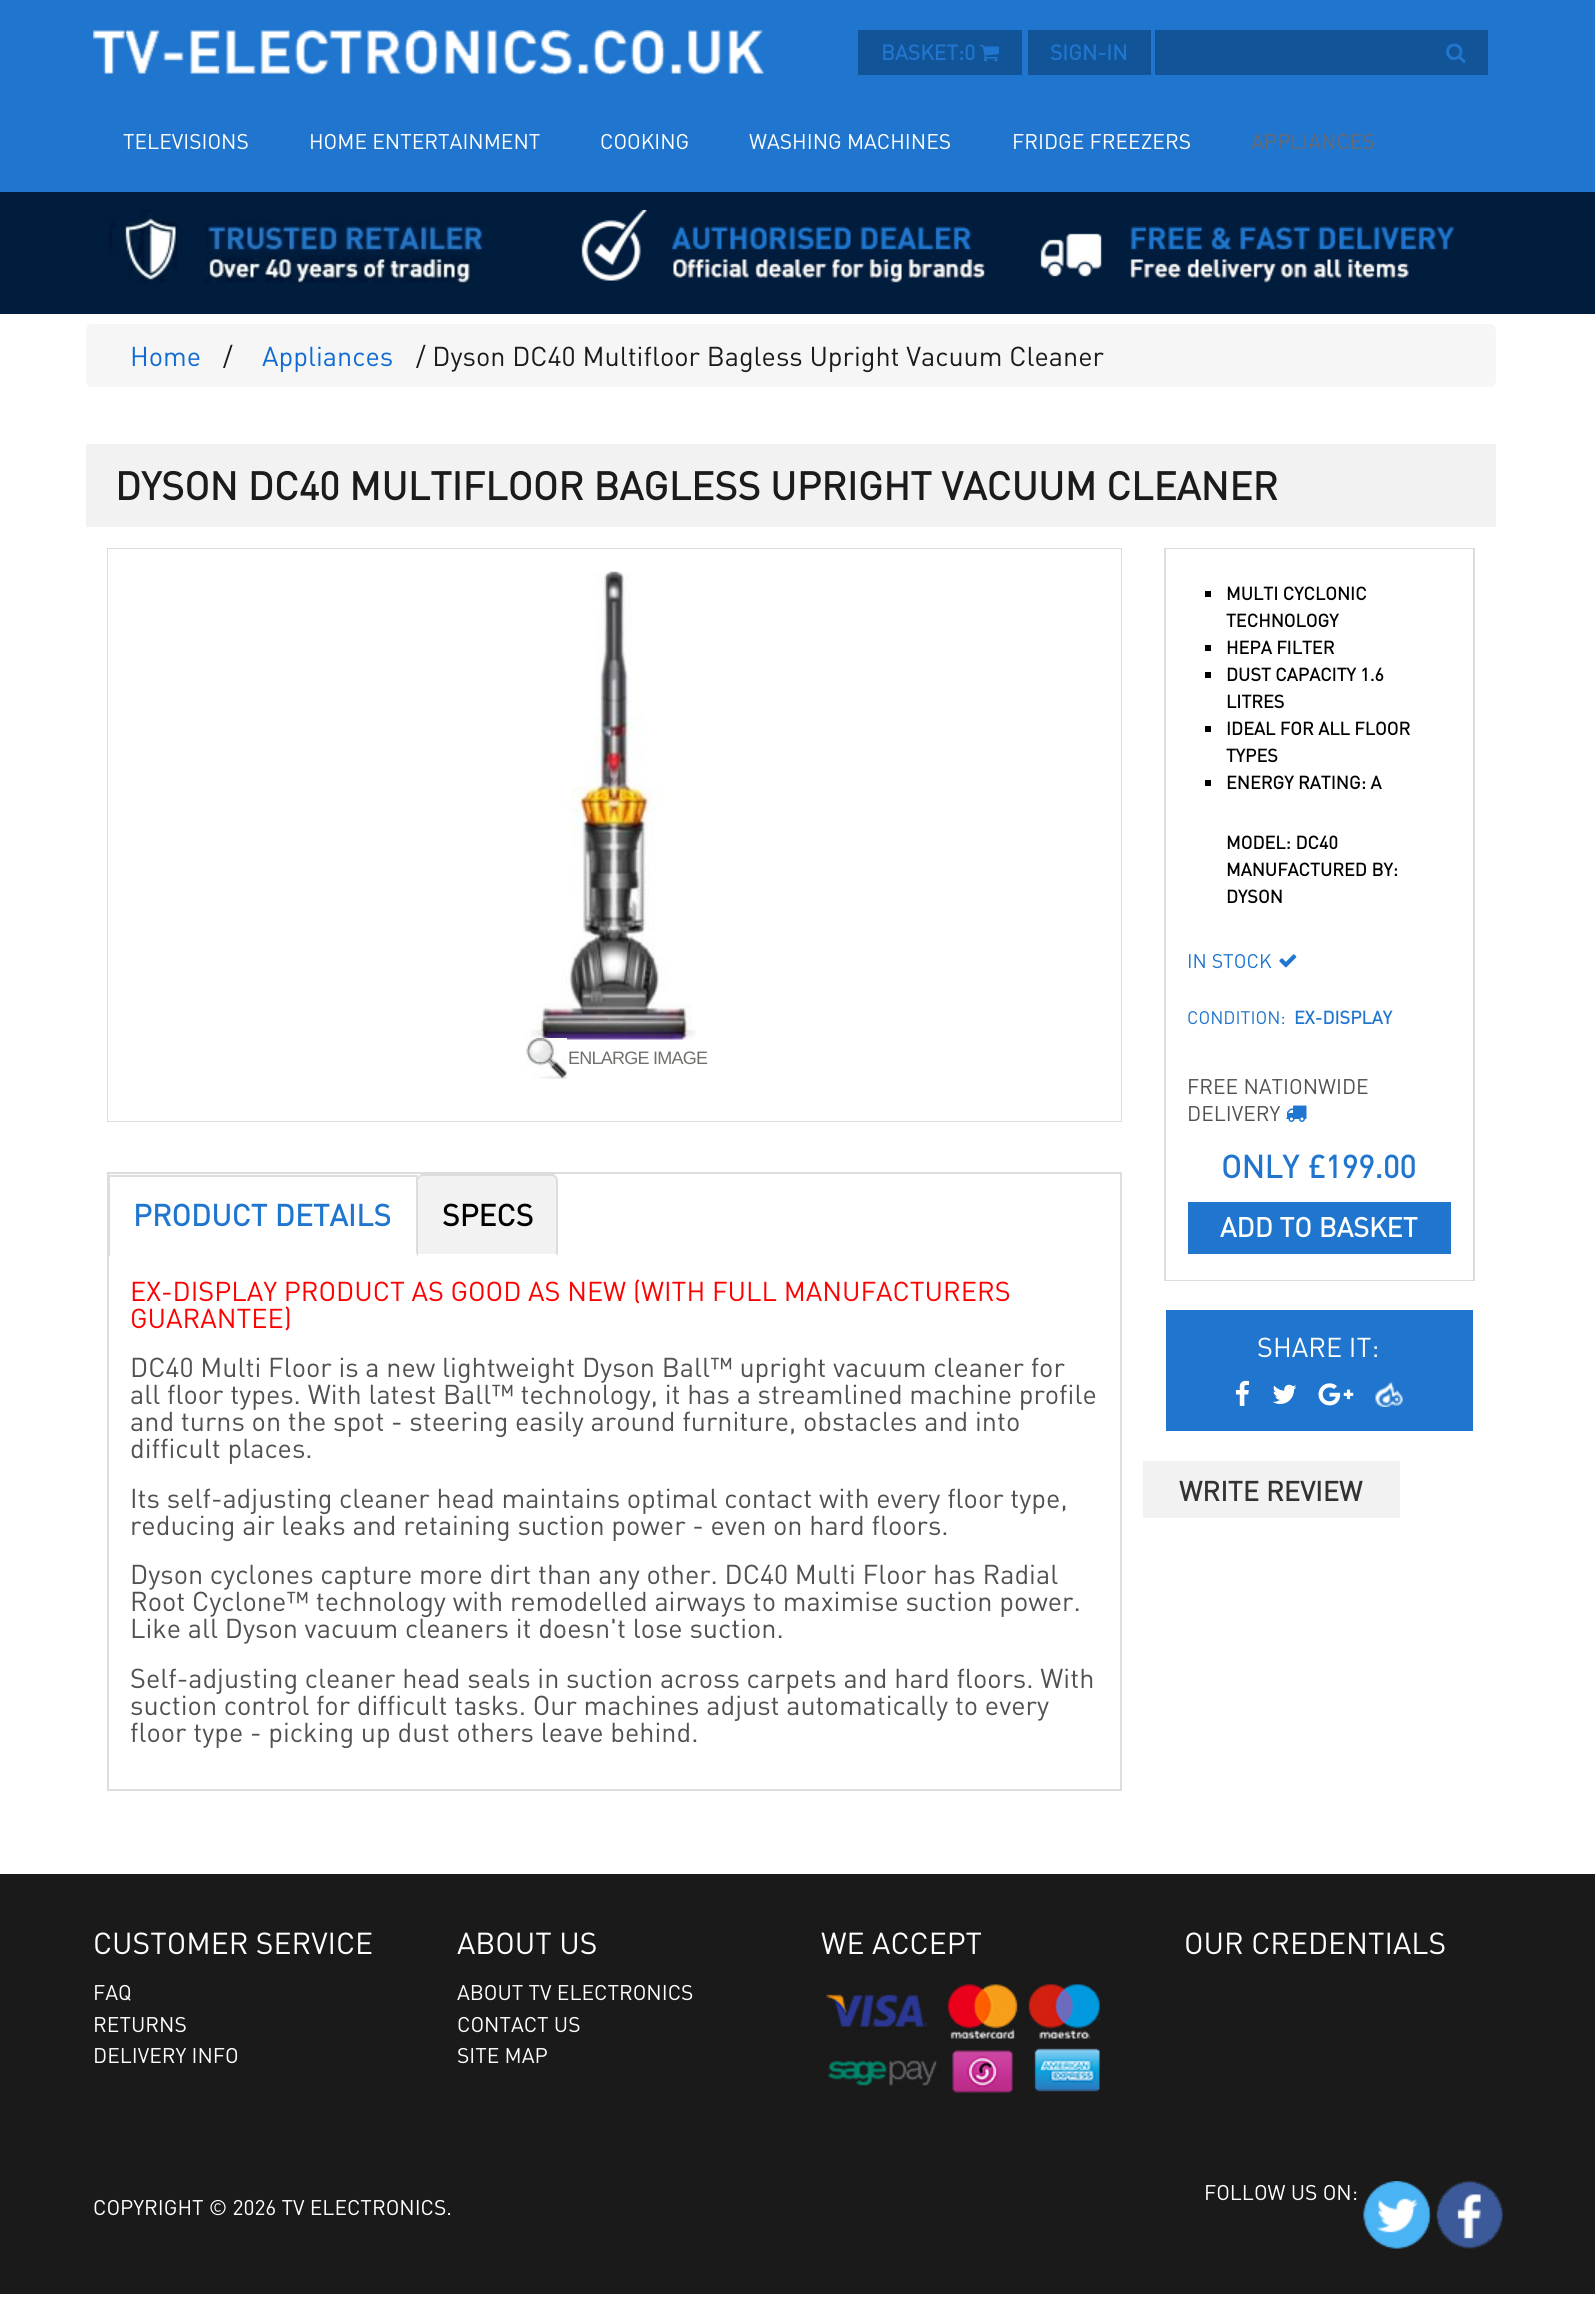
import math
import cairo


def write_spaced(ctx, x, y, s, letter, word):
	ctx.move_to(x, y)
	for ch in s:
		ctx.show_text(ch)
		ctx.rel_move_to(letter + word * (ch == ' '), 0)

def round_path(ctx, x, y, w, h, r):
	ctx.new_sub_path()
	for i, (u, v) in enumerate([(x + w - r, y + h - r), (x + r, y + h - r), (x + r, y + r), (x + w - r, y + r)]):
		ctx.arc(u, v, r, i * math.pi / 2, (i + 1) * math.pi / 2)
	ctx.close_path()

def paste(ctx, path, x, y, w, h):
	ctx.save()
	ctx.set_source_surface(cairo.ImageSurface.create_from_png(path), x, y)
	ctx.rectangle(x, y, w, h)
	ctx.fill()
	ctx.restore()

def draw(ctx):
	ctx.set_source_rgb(1, 1, 1)
	ctx.paint()
	ctx.set_source_rgb(0.125, 0.463, 0.808)
	ctx.rectangle(0, 0, 1595, 192)
	ctx.fill()
	paste(ctx, 'media/1.png', 93, 30, 671, 45)
	ctx.set_source_rgb(0.067, 0.329, 0.596)
	ctx.rectangle(858, 30, 164, 45)
	ctx.fill()
	ctx.select_font_face('DIN', cairo.FONT_SLANT_NORMAL, cairo.FONT_WEIGHT_BOLD)
	ctx.set_font_size(21)
	ctx.set_source_rgb(0.125, 0.463, 0.808)
	ctx.move_to(881, 60)
	ctx.show_text('BASKET:0')
	paste(ctx, 'media/2.png', 979, 45, 20, 17)
	ctx.set_source_rgb(0.067, 0.329, 0.596)
	ctx.rectangle(1028, 30, 123, 45)
	ctx.fill()
	ctx.set_source_rgb(0.125, 0.463, 0.808)
	ctx.move_to(1050, 60)
	ctx.show_text('SIGN-IN')
	ctx.set_source_rgb(0.067, 0.329, 0.596)
	ctx.rectangle(1155, 30, 333, 45)
	ctx.fill()
	paste(ctx, 'media/3.png', 1446, 43, 20, 20)
	ctx.select_font_face('DIN')
	ctx.set_source_rgb(1, 1, 1)
	for x, y, s in [
		(123, 149, 'TELEVISIONS'),
		(309, 149, 'HOME ENTERTAINMENT'),
		(600, 149, 'COOKING'),
		(749, 149, 'WASHING MACHINES'),
		(1012, 149, 'FRIDGE FREEZERS'),
	]:
		ctx.move_to(x, y)
		ctx.show_text(s)
	ctx.set_source_rgb(0.416, 0.412, 0.427)
	ctx.move_to(1251, 149)
	ctx.show_text('APPLIANCES')
	ctx.set_source_rgb(0.004, 0.114, 0.243)
	ctx.rectangle(0, 192, 1595, 122)
	ctx.fill()
	paste(ctx, 'media/4.png', 109, 210, 374, 74)
	paste(ctx, 'media/5.png', 581, 210, 406, 73)
	paste(ctx, 'media/6.png', 1035, 222, 427, 61)
	ctx.set_source_rgb(0.961, 0.961, 0.961)
	round_path(ctx, 86, 324, 1410, 63, 6)
	ctx.fill()
	ctx.set_font_size(27)
	ctx.set_source_rgb(0.059, 0.42, 0.824)
	ctx.move_to(130, 366)
	ctx.show_text('Home')
	ctx.set_source_rgb(0.106, 0.106, 0.106)
	ctx.move_to(223, 366)
	ctx.show_text('/')
	ctx.set_source_rgb(0.059, 0.42, 0.824)
	ctx.move_to(262, 366)
	ctx.show_text('Appliances')
	ctx.set_source_rgb(0.106, 0.106, 0.106)
	ctx.move_to(416, 366)
	ctx.show_text('/ Dyson DC40 Multifloor Bagless Upright Vacuum Cleaner')
	ctx.set_source_rgb(0.949, 0.949, 0.949)
	ctx.rectangle(86, 444, 1410, 83)
	ctx.fill()
	ctx.select_font_face('DIN', cairo.FONT_SLANT_NORMAL, cairo.FONT_WEIGHT_BOLD)
	ctx.set_font_size(39)
	ctx.set_source_rgb(0.106, 0.106, 0.106)
	ctx.move_to(115, 500)
	ctx.show_text('DYSON DC40 MULTIFLOOR BAGLESS UPRIGHT VACUUM CLEANER')
	ctx.rectangle(108, 549, 1013, 572)
	ctx.set_source_rgb(0.867, 0.867, 0.867)
	ctx.stroke()
	ctx.rectangle(119.5, 560.5, 990, 549)
	ctx.set_source_rgb(1, 1, 1)
	ctx.set_line_width(23)
	ctx.stroke()
	paste(ctx, 'media/7.png', 524, 571, 173, 469)
	paste(ctx, 'media/8.png', 526, 1038, 41, 41)
	ctx.select_font_face('Liberation Sans')
	ctx.set_font_size(18)
	ctx.set_source_rgb(0.435, 0.435, 0.424)
	write_spaced(ctx, 568, 1064, 'ENLARGE IMAGE', -0.75, 0)
	ctx.rectangle(108, 1173, 1013, 617)
	ctx.set_source_rgb(0.867, 0.867, 0.867)
	ctx.set_line_width(2)
	ctx.stroke()
	ctx.rectangle(108, 1175, 309, 2)
	ctx.fill()
	ctx.set_source_rgb(0.949, 0.949, 0.949)
	ctx.new_path()
	ctx.move_to(423, 1175)
	ctx.line_to(552, 1175)
	ctx.curve_to(555.5, 1175, 558, 1177.5, 558, 1181)
	ctx.line_to(558, 1256)
	ctx.line_to(417, 1256)
	ctx.line_to(417, 1181)
	ctx.curve_to(417, 1177.5, 419.5, 1175, 423, 1175)
	ctx.close_path()
	ctx.fill()
	ctx.set_source_rgb(0.867, 0.867, 0.867)
	ctx.new_path()
	ctx.move_to(423, 1176)
	ctx.line_to(420, 1177)
	ctx.line_to(419, 1176)
	ctx.line_to(421, 1174)
	ctx.line_to(554, 1174)
	ctx.line_to(556, 1176)
	ctx.line_to(555, 1178)
	ctx.curve_to(554, 1177, 553, 1176, 552, 1176)
	ctx.close_path()
	ctx.fill()
	ctx.new_path()
	ctx.move_to(558, 1256)
	ctx.line_to(558, 1180)
	ctx.curve_to(558, 1179, 557, 1177, 556, 1176)
	ctx.line_to(555, 1178)
	ctx.line_to(556, 1180)
	ctx.line_to(556, 1254)
	ctx.close_path()
	ctx.fill()
	ctx.set_source_rgb(1, 1, 1)
	ctx.new_path()
	ctx.move_to(558, 1256)
	ctx.line_to(417, 1256)
	ctx.line_to(418, 1254)
	ctx.line_to(556, 1254)
	ctx.close_path()
	ctx.fill()
	ctx.set_source_rgb(0.867, 0.867, 0.867)
	ctx.new_path()
	ctx.move_to(417, 1256)
	ctx.line_to(418, 1254)
	ctx.line_to(418, 1180)
	ctx.line_to(420, 1177)
	ctx.line_to(419, 1176)
	ctx.curve_to(418, 1177, 417, 1179, 417, 1180)
	ctx.close_path()
	ctx.fill()
	ctx.rectangle(416, 1175, 2, 81)
	ctx.fill()
	ctx.set_source_rgb(1, 1, 1)
	ctx.rectangle(108, 1254, 309, 2)
	ctx.fill()
	ctx.set_source_rgb(0.867, 0.867, 0.867)
	ctx.rectangle(108, 1175, 2, 81)
	ctx.fill()
	ctx.select_font_face('DIN', cairo.FONT_SLANT_NORMAL, cairo.FONT_WEIGHT_BOLD)
	ctx.set_font_size(30)
	ctx.set_source_rgb(0.125, 0.463, 0.808)
	ctx.move_to(133, 1226)
	ctx.show_text('PRODUCT DETAILS')
	ctx.set_source_rgb(0, 0, 0)
	ctx.move_to(442, 1226)
	ctx.show_text('SPECS')
	ctx.select_font_face('DIN')
	ctx.set_font_size(27)
	ctx.set_source_rgb(1, 0, 0)
	ctx.move_to(130, 1301)
	ctx.show_text('EX-DISPLAY PRODUCT AS GOOD AS NEW (WITH FULL MANUFACTURERS')
	ctx.move_to(130, 1328)
	ctx.show_text('GUARANTEE)')
	ctx.set_source_rgb(0.318, 0.318, 0.318)
	for x, y, s in [
		(130, 1377, 'DC40 Multi Floor is a new lightweight Dyson Ball™ upright vacuum cleaner for'),
		(130, 1404, 'all floor types. With latest Ball™ technology, it has a streamlined machine profile'),
		(130, 1431, 'and turns on the spot - steering easily around furniture, obstacles and into'),
		(130, 1458, 'difficult places.'),
		(130, 1508, 'Its self-adjusting cleaner head maintains optimal contact with every floor type,'),
		(130, 1535, 'reducing air leaks and retaining suction power - even on hard floors.'),
		(130, 1584, 'Dyson cyclones capture more dirt than any other. DC40 Multi Floor has Radial'),
		(130, 1611, 'Root Cyclone™ technology with remodelled airways to maximise suction power.'),
		(130, 1638, 'Like all Dyson vacuum cleaners it doesn\'t lose suction.'),
		(130, 1688, 'Self-adjusting cleaner head seals in suction across carpets and hard floors. With'),
		(130, 1715, 'suction control for difficult tasks. Our machines adjust automatically to every'),
		(130, 1742, 'floor type - picking up dust others leave behind.'),
	]:
		ctx.move_to(x, y)
		ctx.show_text(s)
	ctx.rectangle(1165, 549, 309, 731)
	ctx.set_source_rgb(0.867, 0.867, 0.867)
	ctx.stroke()
	ctx.rectangle(1177.5, 560.5, 284, 708)
	ctx.set_source_rgb(1, 1, 1)
	ctx.set_line_width(23)
	ctx.stroke()
	ctx.set_source_rgb(0, 0, 0)
	ctx.rectangle(1205, 591, 6, 6)
	ctx.fill()
	ctx.select_font_face('DIN', cairo.FONT_SLANT_NORMAL, cairo.FONT_WEIGHT_BOLD)
	ctx.set_font_size(18)
	ctx.move_to(1226, 600)
	ctx.show_text('MULTI CYCLONIC')
	ctx.move_to(1226, 627)
	ctx.show_text('TECHNOLOGY')
	ctx.rectangle(1205, 645, 6, 6)
	ctx.fill()
	ctx.move_to(1226, 654)
	ctx.show_text('HEPA FILTER')
	ctx.rectangle(1205, 672, 6, 6)
	ctx.fill()
	ctx.move_to(1226, 681)
	ctx.show_text('DUST CAPACITY 1.6')
	ctx.move_to(1226, 708)
	ctx.show_text('LITRES')
	ctx.rectangle(1205, 726, 6, 6)
	ctx.fill()
	ctx.move_to(1226, 735)
	ctx.show_text('IDEAL FOR ALL FLOOR')
	ctx.move_to(1226, 762)
	ctx.show_text('TYPES')
	ctx.rectangle(1205, 780, 6, 6)
	ctx.fill()
	for x, y, s in [
		(1226, 789, 'ENERGY RATING: A'),
		(1226, 849, 'MODEL: DC40'),
		(1226, 876, 'MANUFACTURED BY:'),
		(1226, 903, 'DYSON'),
	]:
		ctx.move_to(x, y)
		ctx.show_text(s)
	ctx.select_font_face('DIN')
	ctx.set_font_size(19.5)
	ctx.set_source_rgb(0.125, 0.463, 0.808)
	ctx.move_to(1187, 968)
	ctx.show_text('IN STOCK')
	paste(ctx, 'media/9.png', 1279, 954, 18, 14)
	ctx.set_font_size(18)
	ctx.move_to(1187, 1024)
	ctx.show_text('CONDITION:')
	ctx.select_font_face('DIN', cairo.FONT_SLANT_NORMAL, cairo.FONT_WEIGHT_BOLD)
	ctx.move_to(1294, 1024)
	ctx.show_text('EX-DISPLAY')
	ctx.select_font_face('DIN')
	ctx.set_font_size(21)
	ctx.set_source_rgb(0.318, 0.318, 0.318)
	ctx.move_to(1187, 1094)
	ctx.show_text('FREE NATIONWIDE')
	ctx.move_to(1187, 1121)
	ctx.show_text('DELIVERY')
	paste(ctx, 'media/10.png', 1286, 1105, 21, 17)
	ctx.select_font_face('DIN', cairo.FONT_SLANT_NORMAL, cairo.FONT_WEIGHT_BOLD)
	ctx.set_font_size(31.5)
	ctx.set_source_rgb(0.125, 0.463, 0.808)
	ctx.move_to(1221, 1178)
	ctx.show_text('ONLY')
	ctx.move_to(1308, 1178)
	ctx.show_text('£199.00')
	ctx.rectangle(1188, 1202, 263, 52)
	ctx.fill()
	ctx.set_font_size(27)
	ctx.set_source_rgb(1, 1, 1)
	ctx.move_to(1220, 1237)
	ctx.show_text('ADD TO BASKET')
	ctx.set_source_rgb(0.125, 0.463, 0.808)
	ctx.rectangle(1166, 1310, 307, 121)
	ctx.fill()
	ctx.select_font_face('DIN')
	ctx.set_source_rgb(1, 1, 1)
	ctx.move_to(1257, 1357)
	ctx.show_text('SHARE IT:')
	paste(ctx, 'media/11.png', 1235, 1380, 14, 26)
	paste(ctx, 'media/12.png', 1272, 1384, 25, 20)
	paste(ctx, 'media/13.png', 1318, 1383, 36, 23)
	paste(ctx, 'media/14.png', 1375, 1381, 28, 26)
	ctx.set_source_rgb(0.949, 0.949, 0.949)
	ctx.rectangle(1143, 1461, 257, 57)
	ctx.fill()
	ctx.select_font_face('DIN', cairo.FONT_SLANT_NORMAL, cairo.FONT_WEIGHT_BOLD)
	ctx.set_font_size(27.25)
	ctx.set_source_rgb(0.2, 0.2, 0.2)
	ctx.move_to(1179, 1501)
	ctx.show_text('WRITE REVIEW')
	ctx.set_source_rgb(0.102, 0.102, 0.102)
	ctx.rectangle(0, 1874, 1595, 420)
	ctx.fill()
	ctx.select_font_face('DIN')
	ctx.set_font_size(30)
	ctx.set_source_rgb(1, 1, 1)
	ctx.move_to(93, 1954)
	ctx.show_text('CUSTOMER SERVICE')
	ctx.set_font_size(21)
	for x, y, s in [
		(93, 2000, 'FAQ'),
		(93, 2032, 'RETURNS'),
		(93, 2063, 'DELIVERY INFO'),
	]:
		ctx.move_to(x, y)
		ctx.show_text(s)
	ctx.set_font_size(30)
	ctx.move_to(457, 1954)
	ctx.show_text('ABOUT US')
	ctx.set_font_size(21)
	for x, y, s in [
		(457, 2000, 'ABOUT TV ELECTRONICS'),
		(457, 2032, 'CONTACT US'),
		(457, 2063, 'SITE MAP'),
	]:
		ctx.move_to(x, y)
		ctx.show_text(s)
	ctx.set_font_size(30)
	ctx.move_to(821, 1954)
	ctx.show_text('WE ACCEPT')
	paste(ctx, 'media/15.png', 826, 1984, 274, 109)
	ctx.move_to(1184, 1954)
	ctx.show_text('OUR CREDENTIALS')
	ctx.set_font_size(21)
	ctx.move_to(1204, 2200)
	ctx.show_text('FOLLOW US ON:')
	paste(ctx, 'media/16.png', 1363, 2181, 68, 68)
	paste(ctx, 'media/17.png', 1436, 2181, 67, 68)
	ctx.move_to(93, 2215)
	ctx.show_text('COPYRIGHT © 2026 TV ELECTRONICS.')


surface = cairo.ImageSurface(cairo.FORMAT_RGB24, 1595, 2309)
ctx = cairo.Context(surface)
options = cairo.FontOptions()
options.set_hint_metrics(cairo.HINT_METRICS_OFF)
options.set_hint_style(cairo.HINT_STYLE_NONE)
ctx.set_font_options(options)
ctx.set_miter_limit(4)
draw(ctx)
surface.write_to_png('image.png')
